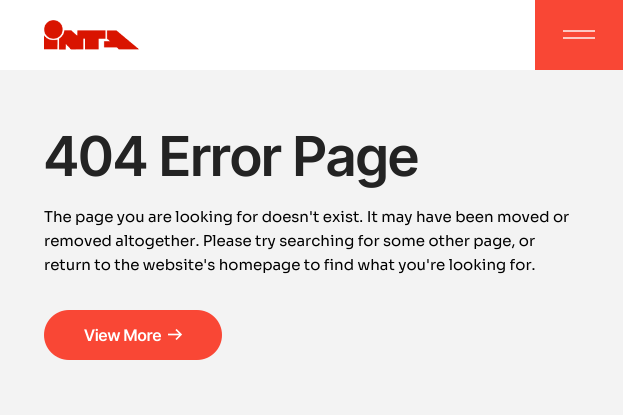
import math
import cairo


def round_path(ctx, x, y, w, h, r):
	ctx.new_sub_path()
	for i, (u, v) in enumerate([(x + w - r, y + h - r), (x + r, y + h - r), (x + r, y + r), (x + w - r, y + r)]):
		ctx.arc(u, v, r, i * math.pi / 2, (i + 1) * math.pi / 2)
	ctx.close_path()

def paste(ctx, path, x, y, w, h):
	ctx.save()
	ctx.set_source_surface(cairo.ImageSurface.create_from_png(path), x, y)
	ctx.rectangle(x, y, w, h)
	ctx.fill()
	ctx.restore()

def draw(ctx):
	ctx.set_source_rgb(1, 1, 1)
	ctx.paint()
	paste(ctx, 'media/1.png', 44, 20, 95, 30)
	ctx.set_source_rgb(0.976, 0.278, 0.208)
	ctx.rectangle(535, 0, 88, 70)
	ctx.fill()
	ctx.new_path()
	ctx.move_to(595, 38)
	ctx.line_to(563, 38)
	ctx.move_to(595, 31)
	ctx.line_to(563, 31)
	ctx.set_source_rgb(1, 1, 1)
	ctx.set_line_width(1.4)
	ctx.stroke()
	ctx.set_source_rgb(0.953, 0.953, 0.953)
	ctx.rectangle(0, 70, 623, 345)
	ctx.fill()
	ctx.select_font_face('Inter Tight SemiBold')
	ctx.set_font_size(55)
	ctx.set_source_rgb(0.137, 0.137, 0.137)
	ctx.move_to(44, 176)
	ctx.show_text('404 Error Page')
	ctx.select_font_face('Sora')
	ctx.set_font_size(15)
	ctx.set_source_rgb(0, 0, 0)
	for x, y, s in [
		(44, 222, 'The page you are looking for doesn\'t exist. It may have been moved or'),
		(44, 246, 'removed altogether. Please try searching for some other page, or'),
		(44, 270, 'return to the website\'s homepage to find what you\'re looking for.'),
	]:
		ctx.move_to(x, y)
		ctx.show_text(s)
	ctx.set_source_rgb(0.976, 0.278, 0.208)
	round_path(ctx, 44, 310, 178, 50, 25)
	ctx.fill()
	ctx.select_font_face('Inter Tight SemiBold')
	ctx.set_font_size(16)
	ctx.set_source_rgb(1, 1, 1)
	ctx.move_to(84, 341)
	ctx.show_text('View More')
	ctx.new_path()
	ctx.move_to(168, 334.5)
	ctx.line_to(181, 334.5)
	ctx.move_to(176, 339.5)
	ctx.line_to(181, 334.5)
	ctx.line_to(176, 329.5)
	ctx.set_line_width(1.6)
	ctx.stroke()


surface = cairo.ImageSurface(cairo.FORMAT_RGB24, 623, 415)
ctx = cairo.Context(surface)
options = cairo.FontOptions()
options.set_hint_metrics(cairo.HINT_METRICS_OFF)
options.set_hint_style(cairo.HINT_STYLE_NONE)
ctx.set_font_options(options)
ctx.set_miter_limit(4)
draw(ctx)
surface.write_to_png('image.png')
